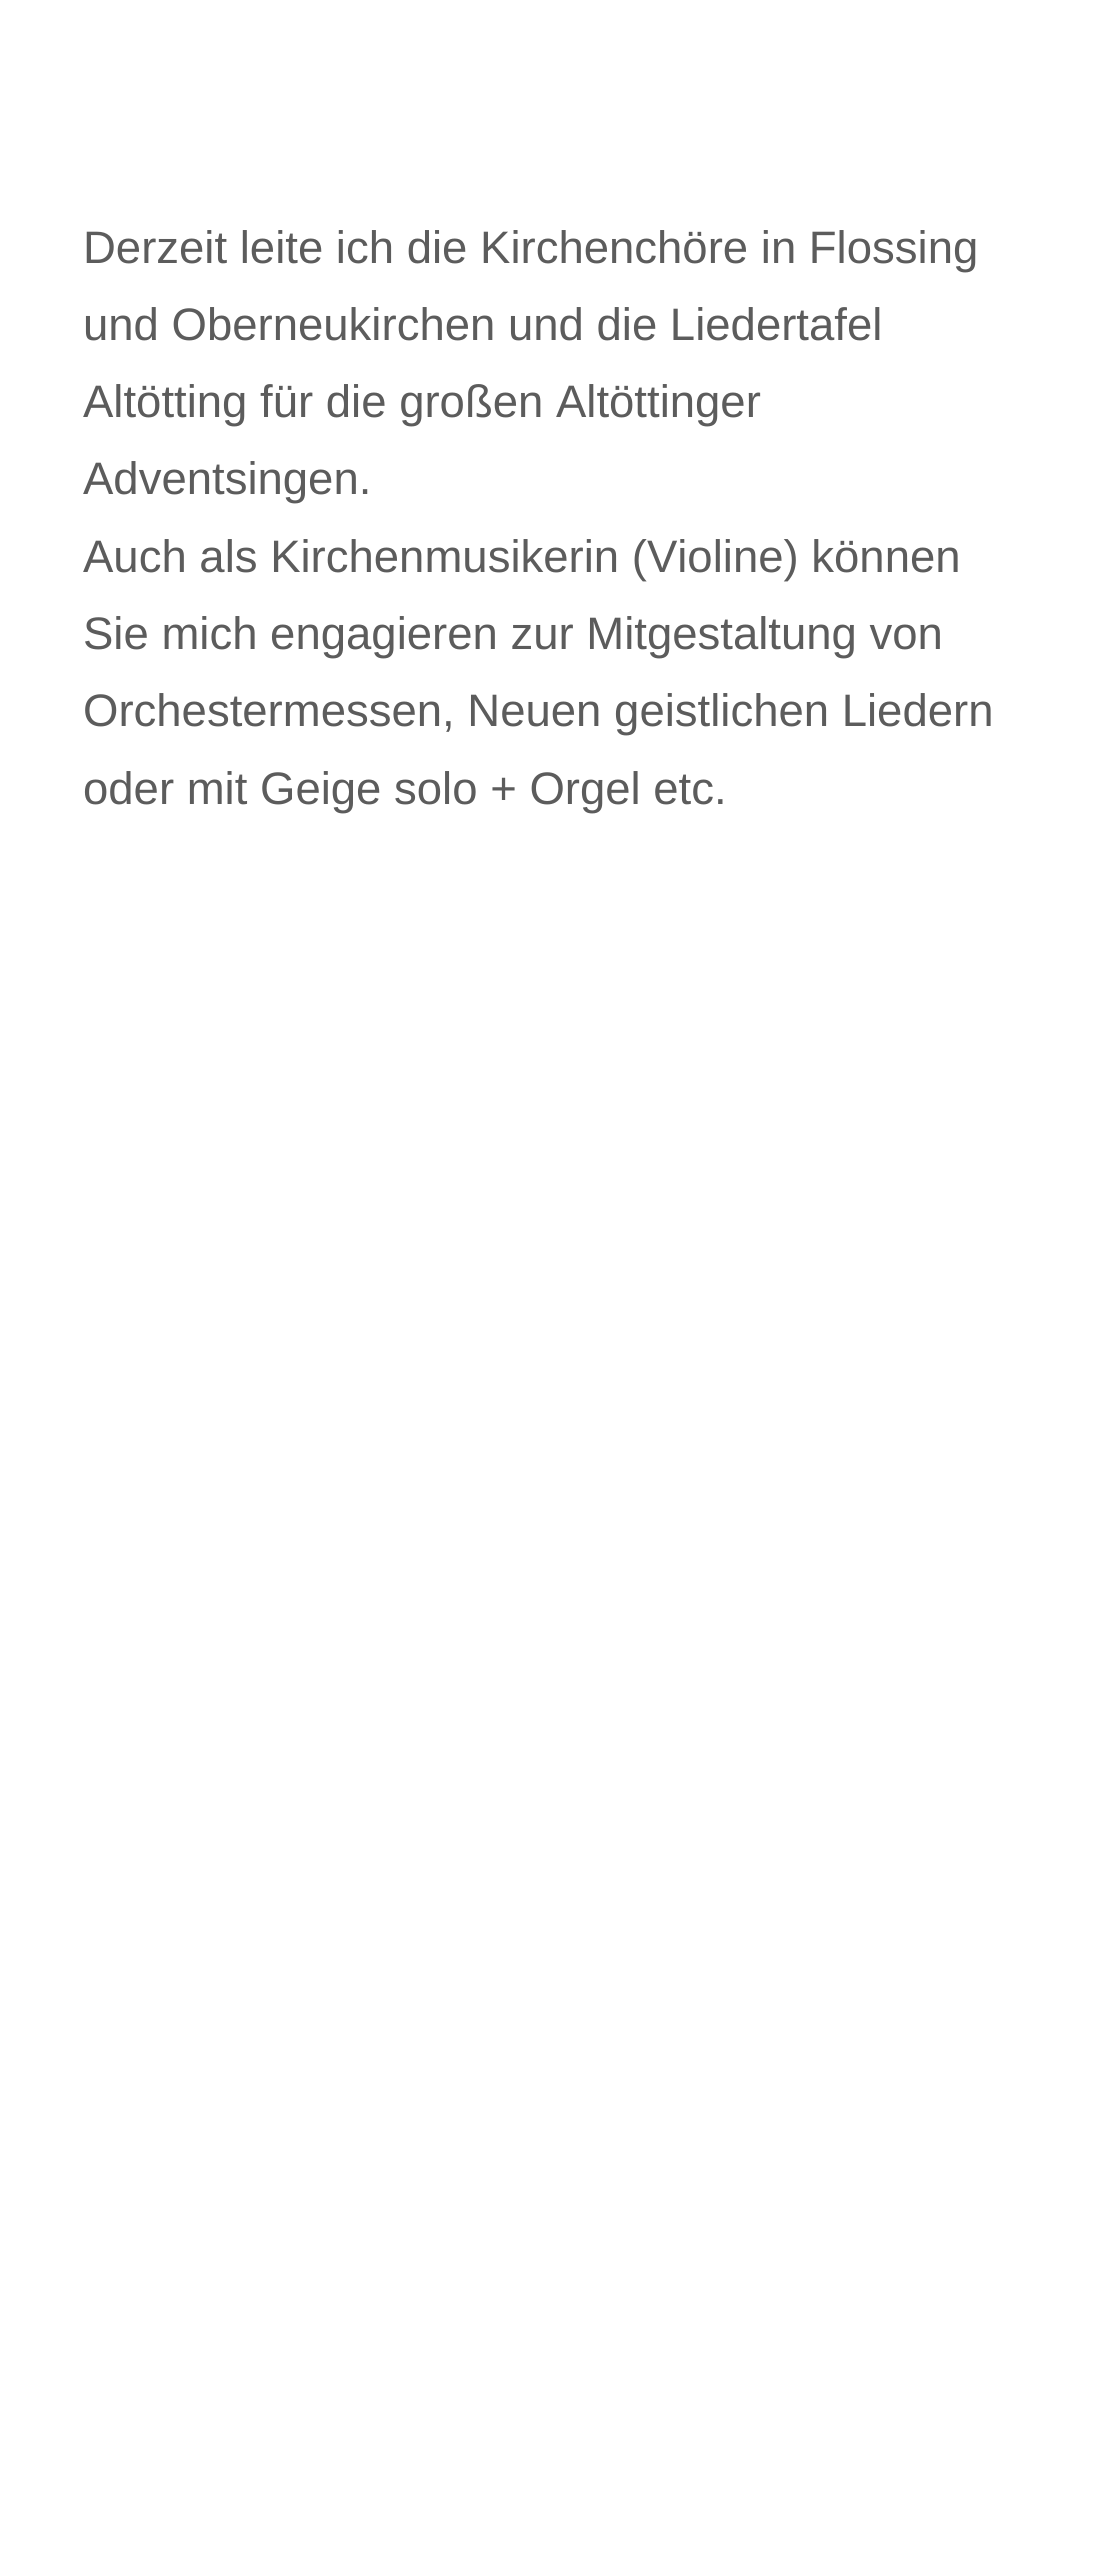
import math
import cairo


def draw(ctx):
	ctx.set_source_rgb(1, 1, 1)
	ctx.paint()
	ctx.select_font_face('Liberation Sans')
	ctx.set_font_size(45.5)
	ctx.set_source_rgb(0.361, 0.361, 0.361)
	for x, y, s in [
		(83, 263, 'Derzeit leite ich die Kirchenchöre in Flossing'),
		(83, 340, 'und Oberneukirchen und die Liedertafel'),
		(83, 417, 'Altötting für die großen Altöttinger'),
		(83, 494, 'Adventsingen.'),
		(83, 572, 'Auch als Kirchenmusikerin (Violine) können'),
		(83, 649, 'Sie mich engagieren zur Mitgestaltung von'),
		(83, 726, 'Orchestermessen, Neuen geistlichen Liedern'),
		(83, 804, 'oder mit Geige solo + Orgel etc.'),
	]:
		ctx.move_to(x, y)
		ctx.show_text(s)


surface = cairo.ImageSurface(cairo.FORMAT_RGB24, 1107, 2570)
ctx = cairo.Context(surface)
options = cairo.FontOptions()
options.set_hint_metrics(cairo.HINT_METRICS_OFF)
options.set_hint_style(cairo.HINT_STYLE_NONE)
ctx.set_font_options(options)
ctx.set_miter_limit(4)
draw(ctx)
surface.write_to_png('image.png')
